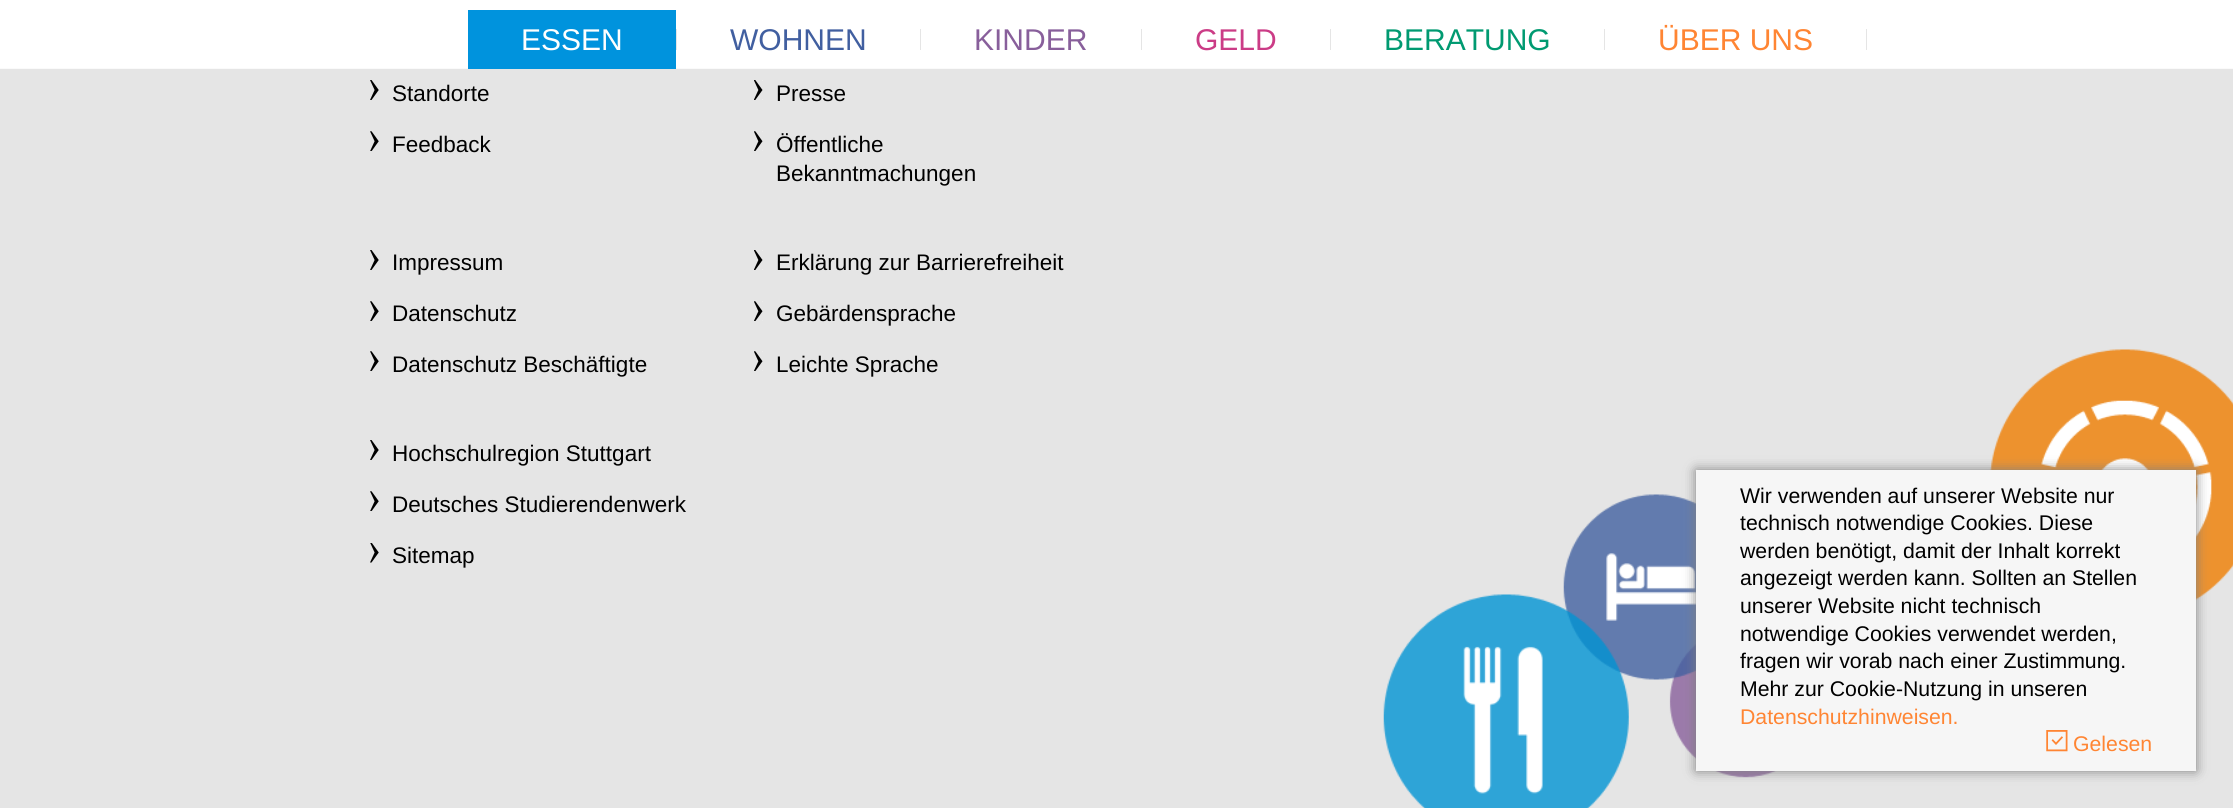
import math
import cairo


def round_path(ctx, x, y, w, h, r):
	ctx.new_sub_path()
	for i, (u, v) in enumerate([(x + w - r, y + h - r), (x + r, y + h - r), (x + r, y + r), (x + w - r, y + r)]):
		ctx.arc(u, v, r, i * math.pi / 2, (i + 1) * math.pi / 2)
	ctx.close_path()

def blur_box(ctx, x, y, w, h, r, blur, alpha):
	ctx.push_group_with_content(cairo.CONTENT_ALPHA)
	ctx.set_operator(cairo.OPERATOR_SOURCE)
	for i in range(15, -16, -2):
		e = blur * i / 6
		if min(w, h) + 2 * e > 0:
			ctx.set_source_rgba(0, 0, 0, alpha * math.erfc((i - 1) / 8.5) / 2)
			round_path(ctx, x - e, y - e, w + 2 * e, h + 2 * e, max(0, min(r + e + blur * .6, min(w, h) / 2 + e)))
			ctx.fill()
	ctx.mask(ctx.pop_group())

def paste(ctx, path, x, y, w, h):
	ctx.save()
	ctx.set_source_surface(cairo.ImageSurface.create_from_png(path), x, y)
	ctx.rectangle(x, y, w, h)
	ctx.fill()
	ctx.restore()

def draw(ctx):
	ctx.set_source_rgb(0.898, 0.898, 0.898)
	ctx.paint()
	ctx.set_source_rgb(1, 1, 1)
	ctx.rectangle(0, 0, 2233, 68)
	ctx.fill()
	ctx.set_source_rgb(0.98, 0.98, 0.98)
	ctx.rectangle(0, 68, 2233, 1)
	ctx.fill()
	ctx.set_source_rgb(0, 0.576, 0.867)
	ctx.rectangle(468, 10, 208, 59)
	ctx.fill()
	ctx.select_font_face('Liberation Sans')
	ctx.set_font_size(30)
	ctx.set_source_rgb(1, 1, 1)
	ctx.move_to(521, 50)
	ctx.show_text('ESSEN')
	ctx.set_source_rgb(0.898, 0.898, 0.898)
	ctx.rectangle(676, 29, 1, 21)
	ctx.fill()
	ctx.set_source_rgb(0.255, 0.373, 0.627)
	ctx.move_to(730, 50)
	ctx.show_text('WOHNEN')
	ctx.set_source_rgb(0.898, 0.898, 0.898)
	ctx.rectangle(920, 29, 1, 21)
	ctx.fill()
	ctx.set_source_rgb(0.533, 0.373, 0.608)
	ctx.move_to(974, 50)
	ctx.show_text('KINDER')
	ctx.set_source_rgb(0.898, 0.898, 0.898)
	ctx.rectangle(1141, 29, 1, 21)
	ctx.fill()
	ctx.set_source_rgb(0.796, 0.235, 0.525)
	ctx.move_to(1195, 50)
	ctx.show_text('GELD')
	ctx.set_source_rgb(0.898, 0.898, 0.898)
	ctx.rectangle(1330, 29, 1, 21)
	ctx.fill()
	ctx.set_source_rgb(0, 0.604, 0.443)
	ctx.move_to(1384, 50)
	ctx.show_text('BERATUNG')
	ctx.set_source_rgb(0.898, 0.898, 0.898)
	ctx.rectangle(1604, 29, 1, 21)
	ctx.fill()
	ctx.set_source_rgb(1, 0.522, 0.2)
	ctx.move_to(1658, 50)
	ctx.show_text('ÜBER UNS')
	ctx.set_source_rgb(0.898, 0.898, 0.898)
	ctx.rectangle(1866, 29, 1, 21)
	ctx.fill()
	paste(ctx, 'media/1.png', 370, 80, 9, 20)
	ctx.set_font_size(22.5)
	ctx.set_source_rgb(0, 0, 0)
	ctx.move_to(392, 101)
	ctx.show_text('Standorte')
	paste(ctx, 'media/2.png', 370, 131, 9, 20)
	ctx.move_to(392, 152)
	ctx.show_text('Feedback')
	paste(ctx, 'media/3.png', 754, 80, 9, 20)
	ctx.move_to(776, 101)
	ctx.show_text('Presse')
	paste(ctx, 'media/4.png', 754, 131, 9, 20)
	ctx.move_to(776, 152)
	ctx.show_text('Öffentliche')
	ctx.move_to(776, 181)
	ctx.show_text('Bekanntmachungen')
	paste(ctx, 'media/1.png', 370, 250, 9, 20)
	ctx.move_to(392, 270)
	ctx.show_text('Impressum')
	paste(ctx, 'media/2.png', 370, 301, 9, 20)
	ctx.move_to(392, 321)
	ctx.show_text('Datenschutz')
	paste(ctx, 'media/2.png', 370, 351, 9, 20)
	ctx.move_to(392, 372)
	ctx.show_text('Datenschutz Beschäftigte')
	paste(ctx, 'media/3.png', 754, 250, 9, 20)
	ctx.move_to(776, 270)
	ctx.show_text('Erklärung zur Barrierefreiheit')
	paste(ctx, 'media/4.png', 754, 301, 9, 20)
	ctx.move_to(776, 321)
	ctx.show_text('Gebärdensprache')
	paste(ctx, 'media/4.png', 754, 351, 9, 20)
	ctx.move_to(776, 372)
	ctx.show_text('Leichte Sprache')
	paste(ctx, 'media/1.png', 370, 440, 9, 20)
	ctx.move_to(392, 461)
	ctx.show_text('Hochschulregion Stuttgart')
	paste(ctx, 'media/2.png', 370, 491, 9, 20)
	ctx.move_to(392, 512)
	ctx.show_text('Deutsches Studierendenwerk')
	paste(ctx, 'media/5.png', 370, 543, 9, 20)
	ctx.move_to(392, 563)
	ctx.show_text('Sitemap')
	paste(ctx, 'media/6.png', 1383, 349, 850, 459)
	ctx.set_source_rgb(0.502, 0.502, 0.502)
	blur_box(ctx, 1696, 470, 500, 301, 0, 6, 1)
	ctx.set_source_rgb(0.961, 0.961, 0.961)
	ctx.rectangle(1696, 470, 500, 301)
	ctx.fill()
	ctx.set_font_size(21.25)
	ctx.set_source_rgb(0, 0, 0)
	for x, y, s in [
		(1740, 503, 'Wir verwenden auf unserer Website nur'),
		(1740, 530, 'technisch notwendige Cookies. Diese'),
		(1740, 558, 'werden benötigt, damit der Inhalt korrekt'),
		(1740, 585, 'angezeigt werden kann. Sollten an Stellen'),
		(1740, 613, 'unserer Website nicht technisch'),
		(1740, 641, 'notwendige Cookies verwendet werden,'),
		(1740, 668, 'fragen wir vorab nach einer Zustimmung.'),
		(1740, 696, 'Mehr zur Cookie-Nutzung in unseren'),
	]:
		ctx.move_to(x, y)
		ctx.show_text(s)
	ctx.set_source_rgb(1, 0.522, 0.2)
	ctx.move_to(1740, 724)
	ctx.show_text('Datenschutzhinweisen.')
	paste(ctx, 'media/7.png', 2046, 730, 22, 22)
	ctx.move_to(2073, 751)
	ctx.show_text('Gelesen')


surface = cairo.ImageSurface(cairo.FORMAT_RGB24, 2233, 808)
ctx = cairo.Context(surface)
options = cairo.FontOptions()
options.set_hint_metrics(cairo.HINT_METRICS_OFF)
options.set_hint_style(cairo.HINT_STYLE_NONE)
ctx.set_font_options(options)
ctx.set_miter_limit(4)
draw(ctx)
surface.write_to_png('image.png')
